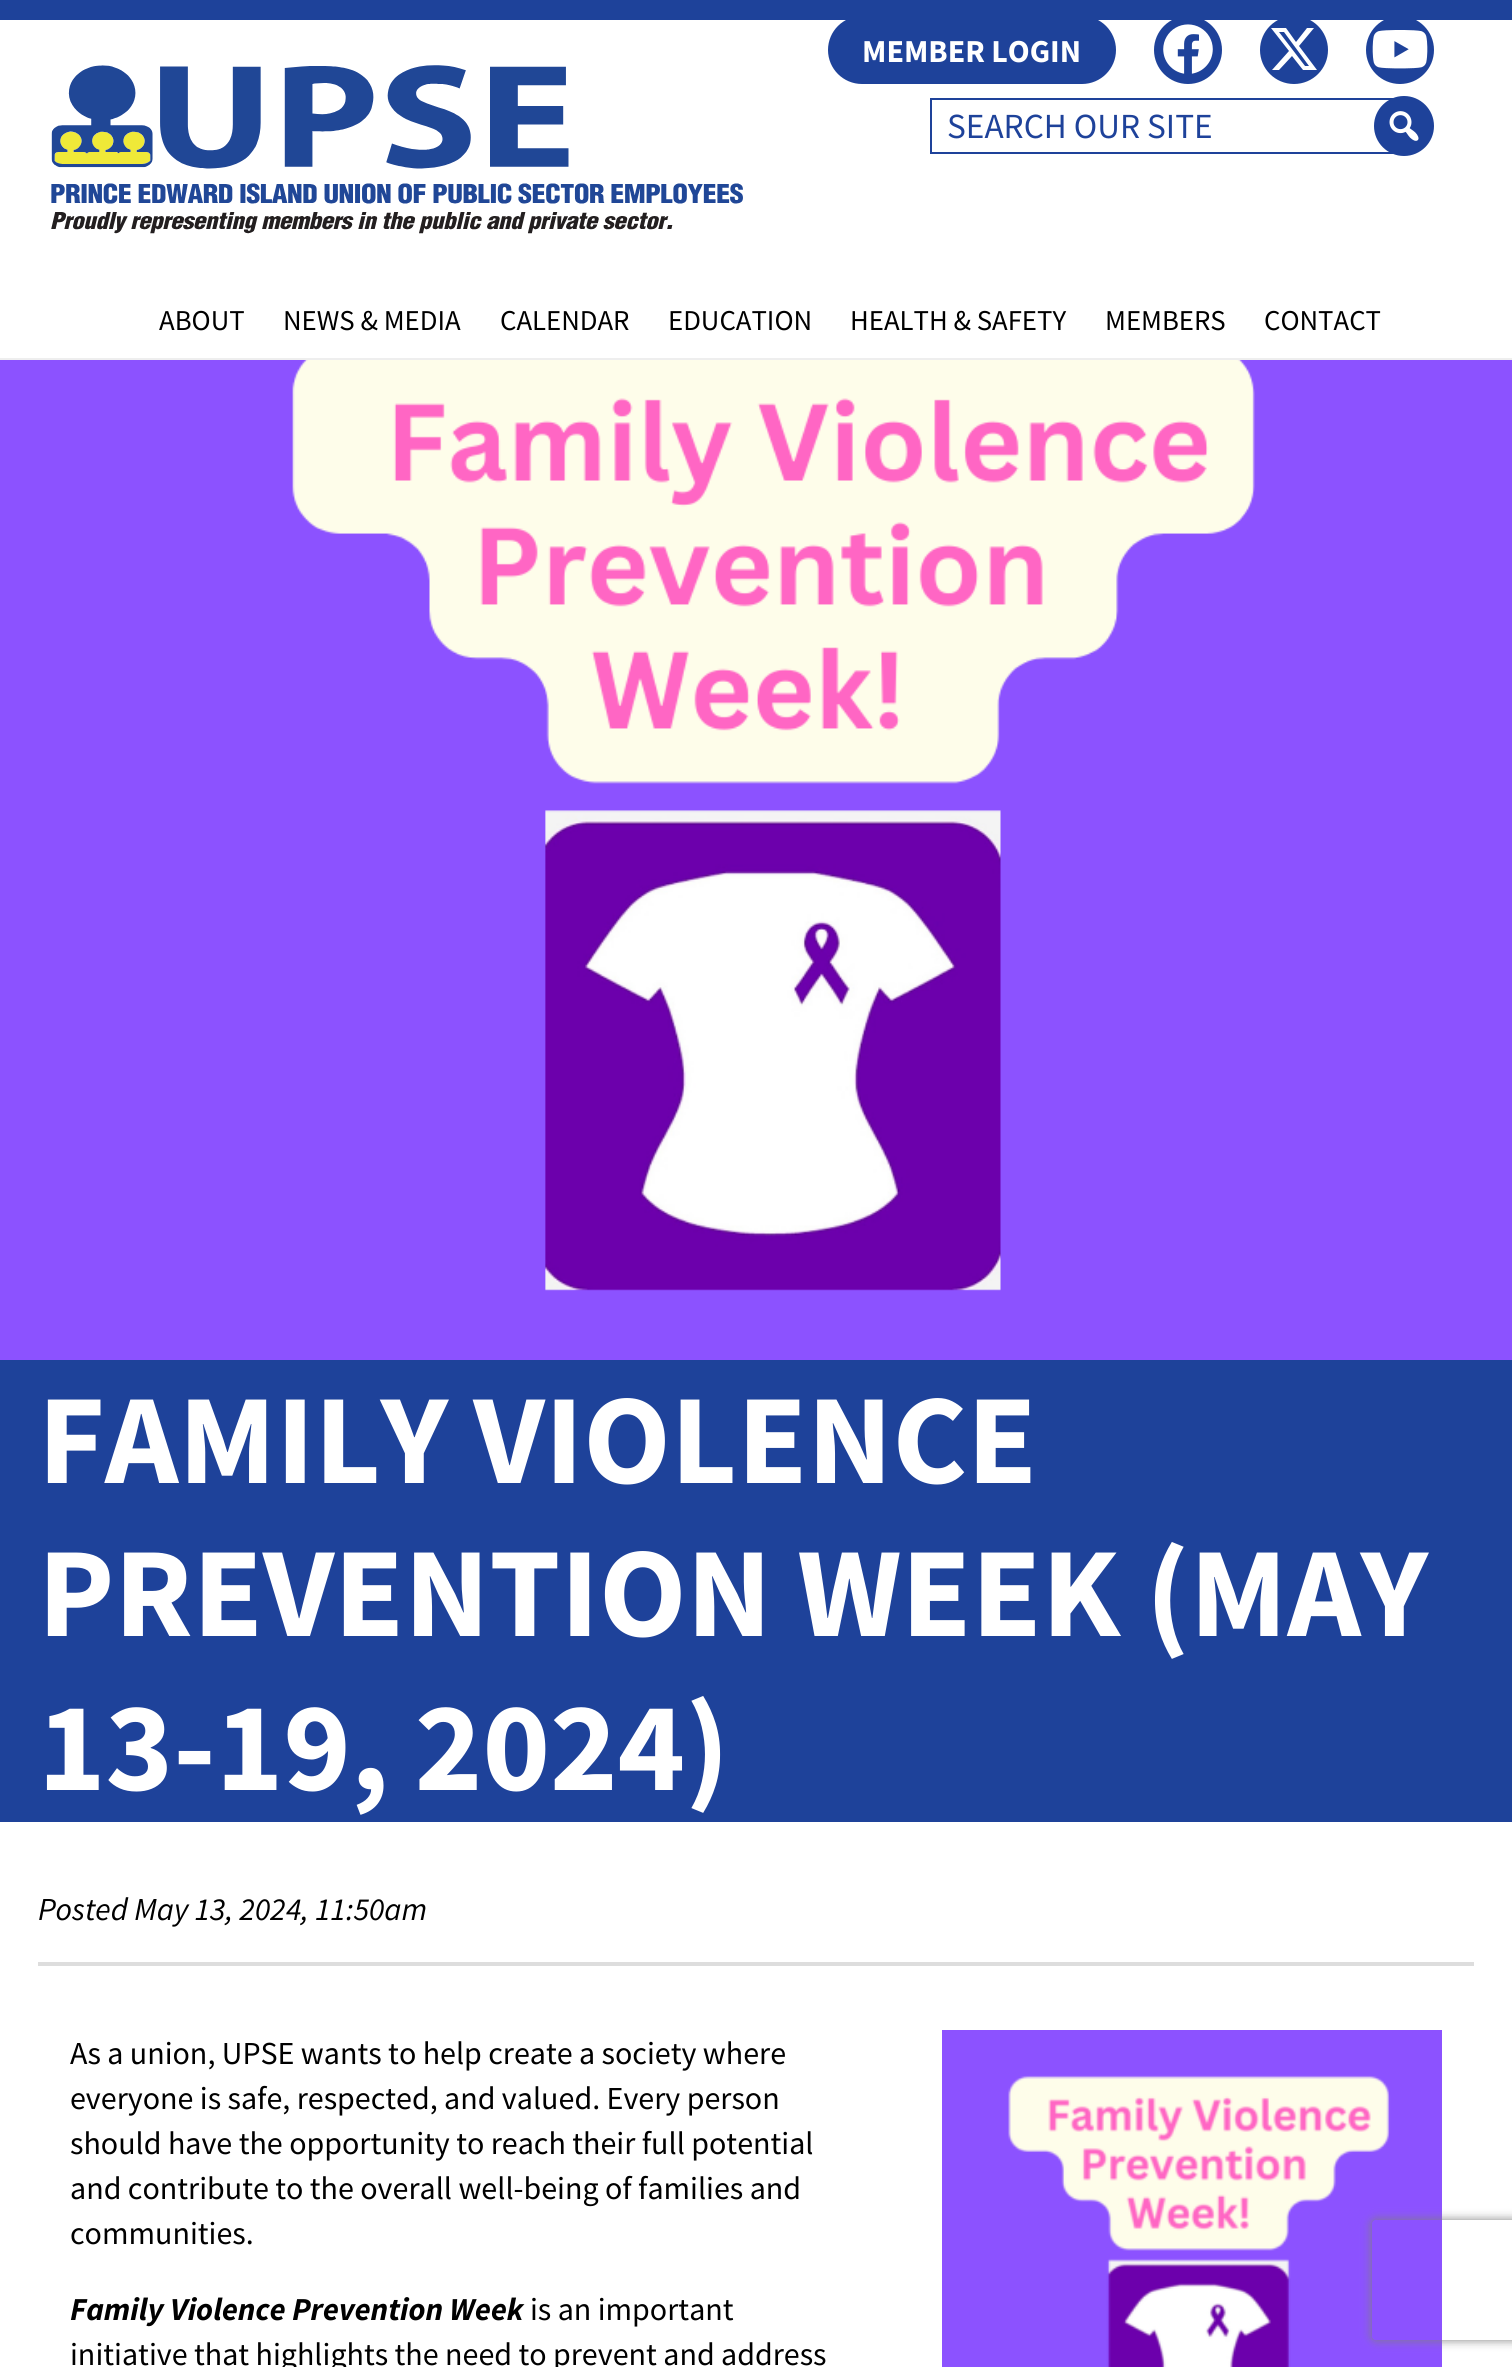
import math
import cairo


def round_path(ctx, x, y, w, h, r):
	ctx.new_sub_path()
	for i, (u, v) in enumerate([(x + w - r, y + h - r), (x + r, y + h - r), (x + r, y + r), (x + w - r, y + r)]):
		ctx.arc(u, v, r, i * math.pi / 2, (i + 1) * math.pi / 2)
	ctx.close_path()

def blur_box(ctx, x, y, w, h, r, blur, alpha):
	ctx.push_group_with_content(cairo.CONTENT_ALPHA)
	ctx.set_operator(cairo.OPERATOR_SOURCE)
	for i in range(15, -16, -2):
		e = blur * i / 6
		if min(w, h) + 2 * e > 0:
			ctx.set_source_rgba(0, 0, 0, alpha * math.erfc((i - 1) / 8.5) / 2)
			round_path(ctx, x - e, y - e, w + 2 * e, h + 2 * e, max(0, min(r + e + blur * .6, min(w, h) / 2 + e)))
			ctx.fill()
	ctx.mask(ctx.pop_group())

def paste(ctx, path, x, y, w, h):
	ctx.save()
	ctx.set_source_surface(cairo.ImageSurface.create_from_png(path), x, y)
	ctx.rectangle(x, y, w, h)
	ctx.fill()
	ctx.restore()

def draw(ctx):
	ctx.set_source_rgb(1, 1, 1)
	ctx.paint()
	ctx.set_source_rgb(0.118, 0.259, 0.604)
	ctx.rectangle(0, 0, 1512, 20)
	ctx.fill()
	ctx.set_source_rgb(0.933, 0.933, 0.933)
	ctx.rectangle(0, 358, 1512, 2)
	ctx.fill()
	ctx.set_source_rgb(0.118, 0.259, 0.604)
	round_path(ctx, 829, 17, 286, 66, 33)
	ctx.fill_preserve()
	ctx.stroke()
	ctx.select_font_face('Source Sans Pro', cairo.FONT_SLANT_NORMAL, cairo.FONT_WEIGHT_BOLD)
	ctx.set_font_size(32)
	ctx.set_source_rgb(1, 1, 1)
	ctx.move_to(862, 62)
	ctx.show_text('MEMBER LOGIN')
	ctx.set_source_rgb(0.118, 0.259, 0.604)
	ctx.new_path()
	ctx.arc(1188, 50, 33, 0, 2 * math.pi)
	ctx.fill_preserve()
	ctx.stroke()
	paste(ctx, 'media/1.png', 1163, 24, 50, 50)
	ctx.arc(1294, 50, 33, 0, 2 * math.pi)
	ctx.fill_preserve()
	ctx.stroke()
	ctx.set_source_rgb(1, 1, 1)
	ctx.new_path()
	ctx.move_to(1307, 28)
	ctx.line_to(1314, 28)
	ctx.line_to(1299, 46)
	ctx.line_to(1317, 70)
	ctx.line_to(1303, 70)
	ctx.line_to(1292, 56)
	ctx.line_to(1279, 70)
	ctx.line_to(1272, 70)
	ctx.line_to(1289, 51)
	ctx.line_to(1271, 28)
	ctx.line_to(1286, 28)
	ctx.line_to(1296, 42)
	ctx.close_path()
	ctx.move_to(1305, 66)
	ctx.line_to(1309, 66)
	ctx.line_to(1284, 32)
	ctx.line_to(1279, 32)
	ctx.close_path()
	ctx.fill()
	ctx.set_source_rgb(0.118, 0.259, 0.604)
	ctx.arc(1400, 50, 33, 0, 2 * math.pi)
	ctx.fill_preserve()
	ctx.stroke()
	paste(ctx, 'media/2.png', 1372, 30, 56, 39)
	ctx.rectangle(931, 99, 476, 54)
	ctx.stroke()
	ctx.select_font_face('Source Sans Pro')
	ctx.set_font_size(35.25)
	ctx.move_to(947, 138)
	ctx.show_text('SEARCH OUR SITE')
	ctx.new_path()
	ctx.arc(1404, 126, 29, 0, 2 * math.pi)
	ctx.fill_preserve()
	ctx.stroke()
	paste(ctx, 'media/3.png', 1389, 111, 30, 30)
	ctx.set_font_size(28.75)
	ctx.set_source_rgb(0, 0, 0)
	for x, y, s in [
		(159, 330, 'ABOUT'),
		(283, 330, 'NEWS & MEDIA'),
		(500, 330, 'CALENDAR'),
		(668, 330, 'EDUCATION'),
		(850, 330, 'HEALTH & SAFETY'),
		(1105, 330, 'MEMBERS'),
		(1264, 330, 'CONTACT'),
	]:
		ctx.move_to(x, y)
		ctx.show_text(s)
	paste(ctx, 'media/4.png', 51, 65, 692, 169)
	paste(ctx, 'media/5.png', 0, 360, 1512, 1000)
	ctx.set_source_rgb(0.118, 0.259, 0.604)
	ctx.rectangle(0, 1360, 1512, 462)
	ctx.fill()
	ctx.select_font_face('Source Sans Pro', cairo.FONT_SLANT_NORMAL, cairo.FONT_WEIGHT_BOLD)
	ctx.set_font_size(128)
	ctx.set_source_rgb(1, 1, 1)
	for x, y, s in [
		(38, 1483, 'FAMILY VIOLENCE'),
		(38, 1636, 'PREVENTION WEEK (MAY'),
		(38, 1790, '13-19, 2024)'),
	]:
		ctx.move_to(x, y)
		ctx.show_text(s)
	ctx.select_font_face('Source Sans Pro', cairo.FONT_SLANT_ITALIC)
	ctx.set_font_size(32)
	ctx.set_source_rgb(0, 0, 0)
	ctx.move_to(38, 1920)
	ctx.show_text('Posted May 13, 2024, 11:50am')
	ctx.set_source_rgb(0.867, 0.867, 0.867)
	ctx.rectangle(38, 1962, 1436, 4)
	ctx.fill()
	ctx.select_font_face('Source Sans Pro')
	ctx.set_source_rgb(0, 0, 0)
	for x, y, s in [
		(70, 2064, 'As a union, UPSE wants to help create a society where'),
		(70, 2109, 'everyone is safe, respected, and valued. Every person'),
		(70, 2154, 'should have the opportunity to reach their full potential'),
		(70, 2199, 'and contribute to the overall well-being of families and'),
		(70, 2244, 'communities.'),
	]:
		ctx.move_to(x, y)
		ctx.show_text(s)
	paste(ctx, 'media/6.png', 942, 2030, 500, 337)
	ctx.select_font_face('Source Sans Pro', cairo.FONT_SLANT_ITALIC, cairo.FONT_WEIGHT_BOLD)
	ctx.move_to(70, 2320)
	ctx.show_text('Family Violence Prevention Week')
	ctx.select_font_face('Source Sans Pro')
	ctx.move_to(530, 2320)
	ctx.show_text('is an important')
	ctx.move_to(70, 2365)
	ctx.show_text('initiative that highlights the need to prevent and address')
	ctx.save()
	ctx.set_fill_rule(cairo.FILL_RULE_EVEN_ODD)
	ctx.new_path()
	ctx.move_to(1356, 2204)
	ctx.line_to(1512, 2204)
	ctx.line_to(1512, 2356)
	ctx.line_to(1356, 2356)
	ctx.close_path()
	ctx.move_to(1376, 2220)
	ctx.line_to(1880, 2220)
	ctx.curve_to(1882, 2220, 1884, 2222, 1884, 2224)
	ctx.line_to(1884, 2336)
	ctx.curve_to(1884, 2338, 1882, 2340, 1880, 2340)
	ctx.line_to(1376, 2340)
	ctx.curve_to(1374, 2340, 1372, 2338, 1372, 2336)
	ctx.line_to(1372, 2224)
	ctx.curve_to(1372, 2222, 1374, 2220, 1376, 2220)
	ctx.close_path()
	ctx.clip()
	ctx.set_source_rgb(0.502, 0.502, 0.502)
	blur_box(ctx, 1372, 2220, 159, 120, 4, 5, 1)
	ctx.restore()


surface = cairo.ImageSurface(cairo.FORMAT_RGB24, 1512, 2367)
ctx = cairo.Context(surface)
options = cairo.FontOptions()
options.set_hint_metrics(cairo.HINT_METRICS_OFF)
options.set_hint_style(cairo.HINT_STYLE_NONE)
ctx.set_font_options(options)
ctx.set_miter_limit(4)
draw(ctx)
surface.write_to_png('image.png')
